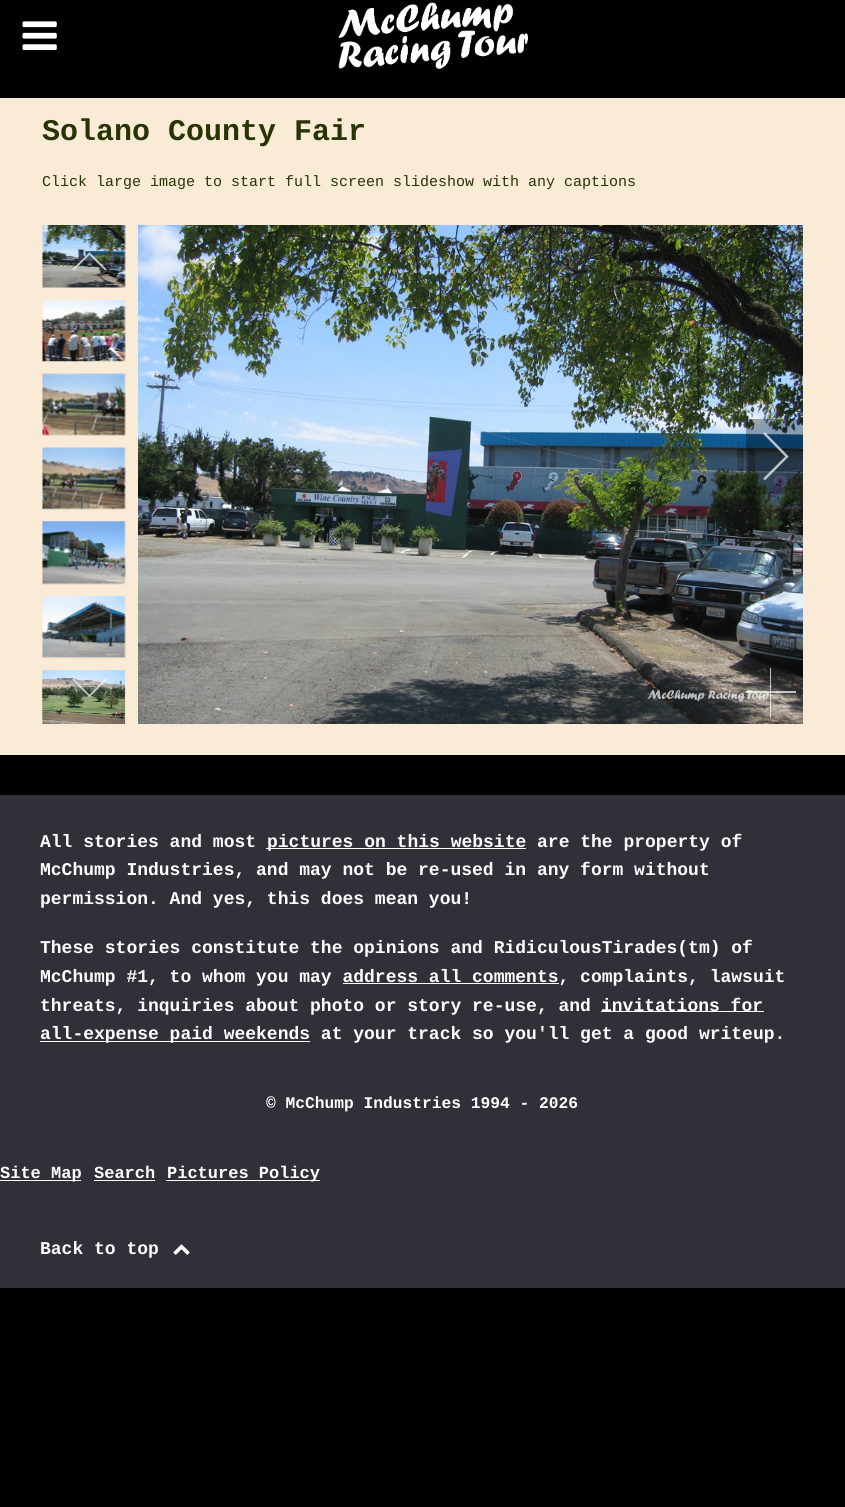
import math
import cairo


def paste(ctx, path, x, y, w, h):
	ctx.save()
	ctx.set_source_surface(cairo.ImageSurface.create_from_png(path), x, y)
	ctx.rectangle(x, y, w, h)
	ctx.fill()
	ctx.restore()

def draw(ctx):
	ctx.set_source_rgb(0, 0, 0)
	ctx.paint()
	paste(ctx, 'media/1.png', 22, 21, 35, 29)
	paste(ctx, 'media/2.png', 338, 2, 190, 68)
	ctx.set_source_rgb(0.976, 0.918, 0.835)
	ctx.rectangle(0, 98, 845, 657)
	ctx.fill()
	ctx.select_font_face('Liberation Mono', cairo.FONT_SLANT_NORMAL, cairo.FONT_WEIGHT_BOLD)
	ctx.set_font_size(30)
	ctx.set_source_rgb(0.157, 0.2, 0.024)
	ctx.move_to(42, 140)
	ctx.show_text('Solano County Fair')
	ctx.select_font_face('Liberation Mono')
	ctx.set_font_size(15)
	ctx.move_to(42, 186)
	ctx.show_text('Click large image to start full screen slideshow with any captions')
	paste(ctx, 'media/3.png', 42, 225, 84, 63)
	paste(ctx, 'media/4.png', 42, 300, 84, 62)
	paste(ctx, 'media/5.png', 42, 373, 84, 63)
	paste(ctx, 'media/6.png', 42, 447, 84, 63)
	paste(ctx, 'media/7.png', 42, 521, 84, 64)
	paste(ctx, 'media/8.png', 42, 596, 84, 63)
	paste(ctx, 'media/9.png', 42, 670, 84, 54)
	ctx.new_path()
	ctx.move_to(106, 270)
	ctx.line_to(89.5, 253.5)
	ctx.line_to(73, 270)
	ctx.set_source_rgba(1, 1, 1, 0.7)
	ctx.set_line_width(1.8)
	ctx.stroke()
	ctx.new_path()
	ctx.move_to(73, 679)
	ctx.line_to(89.5, 696)
	ctx.line_to(106, 679)
	ctx.stroke()
	paste(ctx, 'media/10.png', 138, 225, 665, 499)
	ctx.rectangle(770, 668, 1, 50)
	ctx.fill()
	ctx.rectangle(746, 691, 50, 2)
	ctx.fill()
	ctx.set_source_rgba(0, 0, 0, 0.3)
	ctx.rectangle(746, 419, 57, 75)
	ctx.fill()
	ctx.new_path()
	ctx.move_to(764, 479.5)
	ctx.line_to(787, 456.5)
	ctx.line_to(764, 433)
	ctx.set_source_rgba(1, 1, 1, 0.7)
	ctx.set_line_width(2.5)
	ctx.stroke()
	ctx.set_source_rgb(0.192, 0.184, 0.22)
	ctx.rectangle(0, 795, 845, 493)
	ctx.fill()
	ctx.select_font_face('Liberation Mono', cairo.FONT_SLANT_NORMAL, cairo.FONT_WEIGHT_BOLD)
	ctx.set_font_size(18)
	ctx.set_source_rgb(1, 1, 1)
	ctx.move_to(40, 847)
	ctx.show_text('All stories and most')
	ctx.rectangle(266, 848, 260, 1)
	ctx.fill()
	for x, y, s in [
		(267, 847, 'pictures on this website are the property of'),
		(40, 875, 'McChump Industries, and may not be re-used in any form without'),
		(40, 904, 'permission. And yes, this does mean you!'),
		(40, 953, 'These stories constitute the opinions and RidiculousTirades(tm) of'),
		(40, 982, 'McChump #1, to whom you may address all comments, complaints, lawsuit'),
	]:
		ctx.move_to(x, y)
		ctx.show_text(s)
	ctx.rectangle(343, 983, 216, 1)
	ctx.fill()
	ctx.move_to(40, 1011)
	ctx.show_text('threats, inquiries about photo or story re-use, and')
	ctx.rectangle(601, 1011, 163, 1)
	ctx.fill()
	ctx.move_to(601, 1011)
	ctx.show_text('invitations for')
	ctx.rectangle(40, 1041, 270, 1)
	ctx.fill()
	ctx.move_to(40, 1039)
	ctx.show_text('all-expense paid weekends at your track so you\'ll get a good writeup.')
	ctx.set_font_size(16.25)
	ctx.move_to(266, 1108)
	ctx.show_text('© McChump Industries 1994 - 2026')
	ctx.rectangle(0, 1180, 81, 1)
	ctx.fill()
	ctx.set_font_size(17)
	ctx.move_to(0, 1178)
	ctx.show_text('Site Map')
	ctx.move_to(94, 1178)
	ctx.show_text('Search')
	ctx.rectangle(94, 1180, 61, 1)
	ctx.fill()
	ctx.rectangle(166, 1180, 154, 1)
	ctx.fill()
	ctx.move_to(167, 1178)
	ctx.show_text('Pictures Policy')
	ctx.set_font_size(18)
	ctx.move_to(40, 1254)
	ctx.show_text('Back to top')
	paste(ctx, 'media/11.png', 173, 1244, 17, 11)


surface = cairo.ImageSurface(cairo.FORMAT_RGB24, 845, 1507)
ctx = cairo.Context(surface)
options = cairo.FontOptions()
options.set_hint_metrics(cairo.HINT_METRICS_OFF)
options.set_hint_style(cairo.HINT_STYLE_NONE)
ctx.set_font_options(options)
ctx.set_miter_limit(4)
draw(ctx)
surface.write_to_png('image.png')
